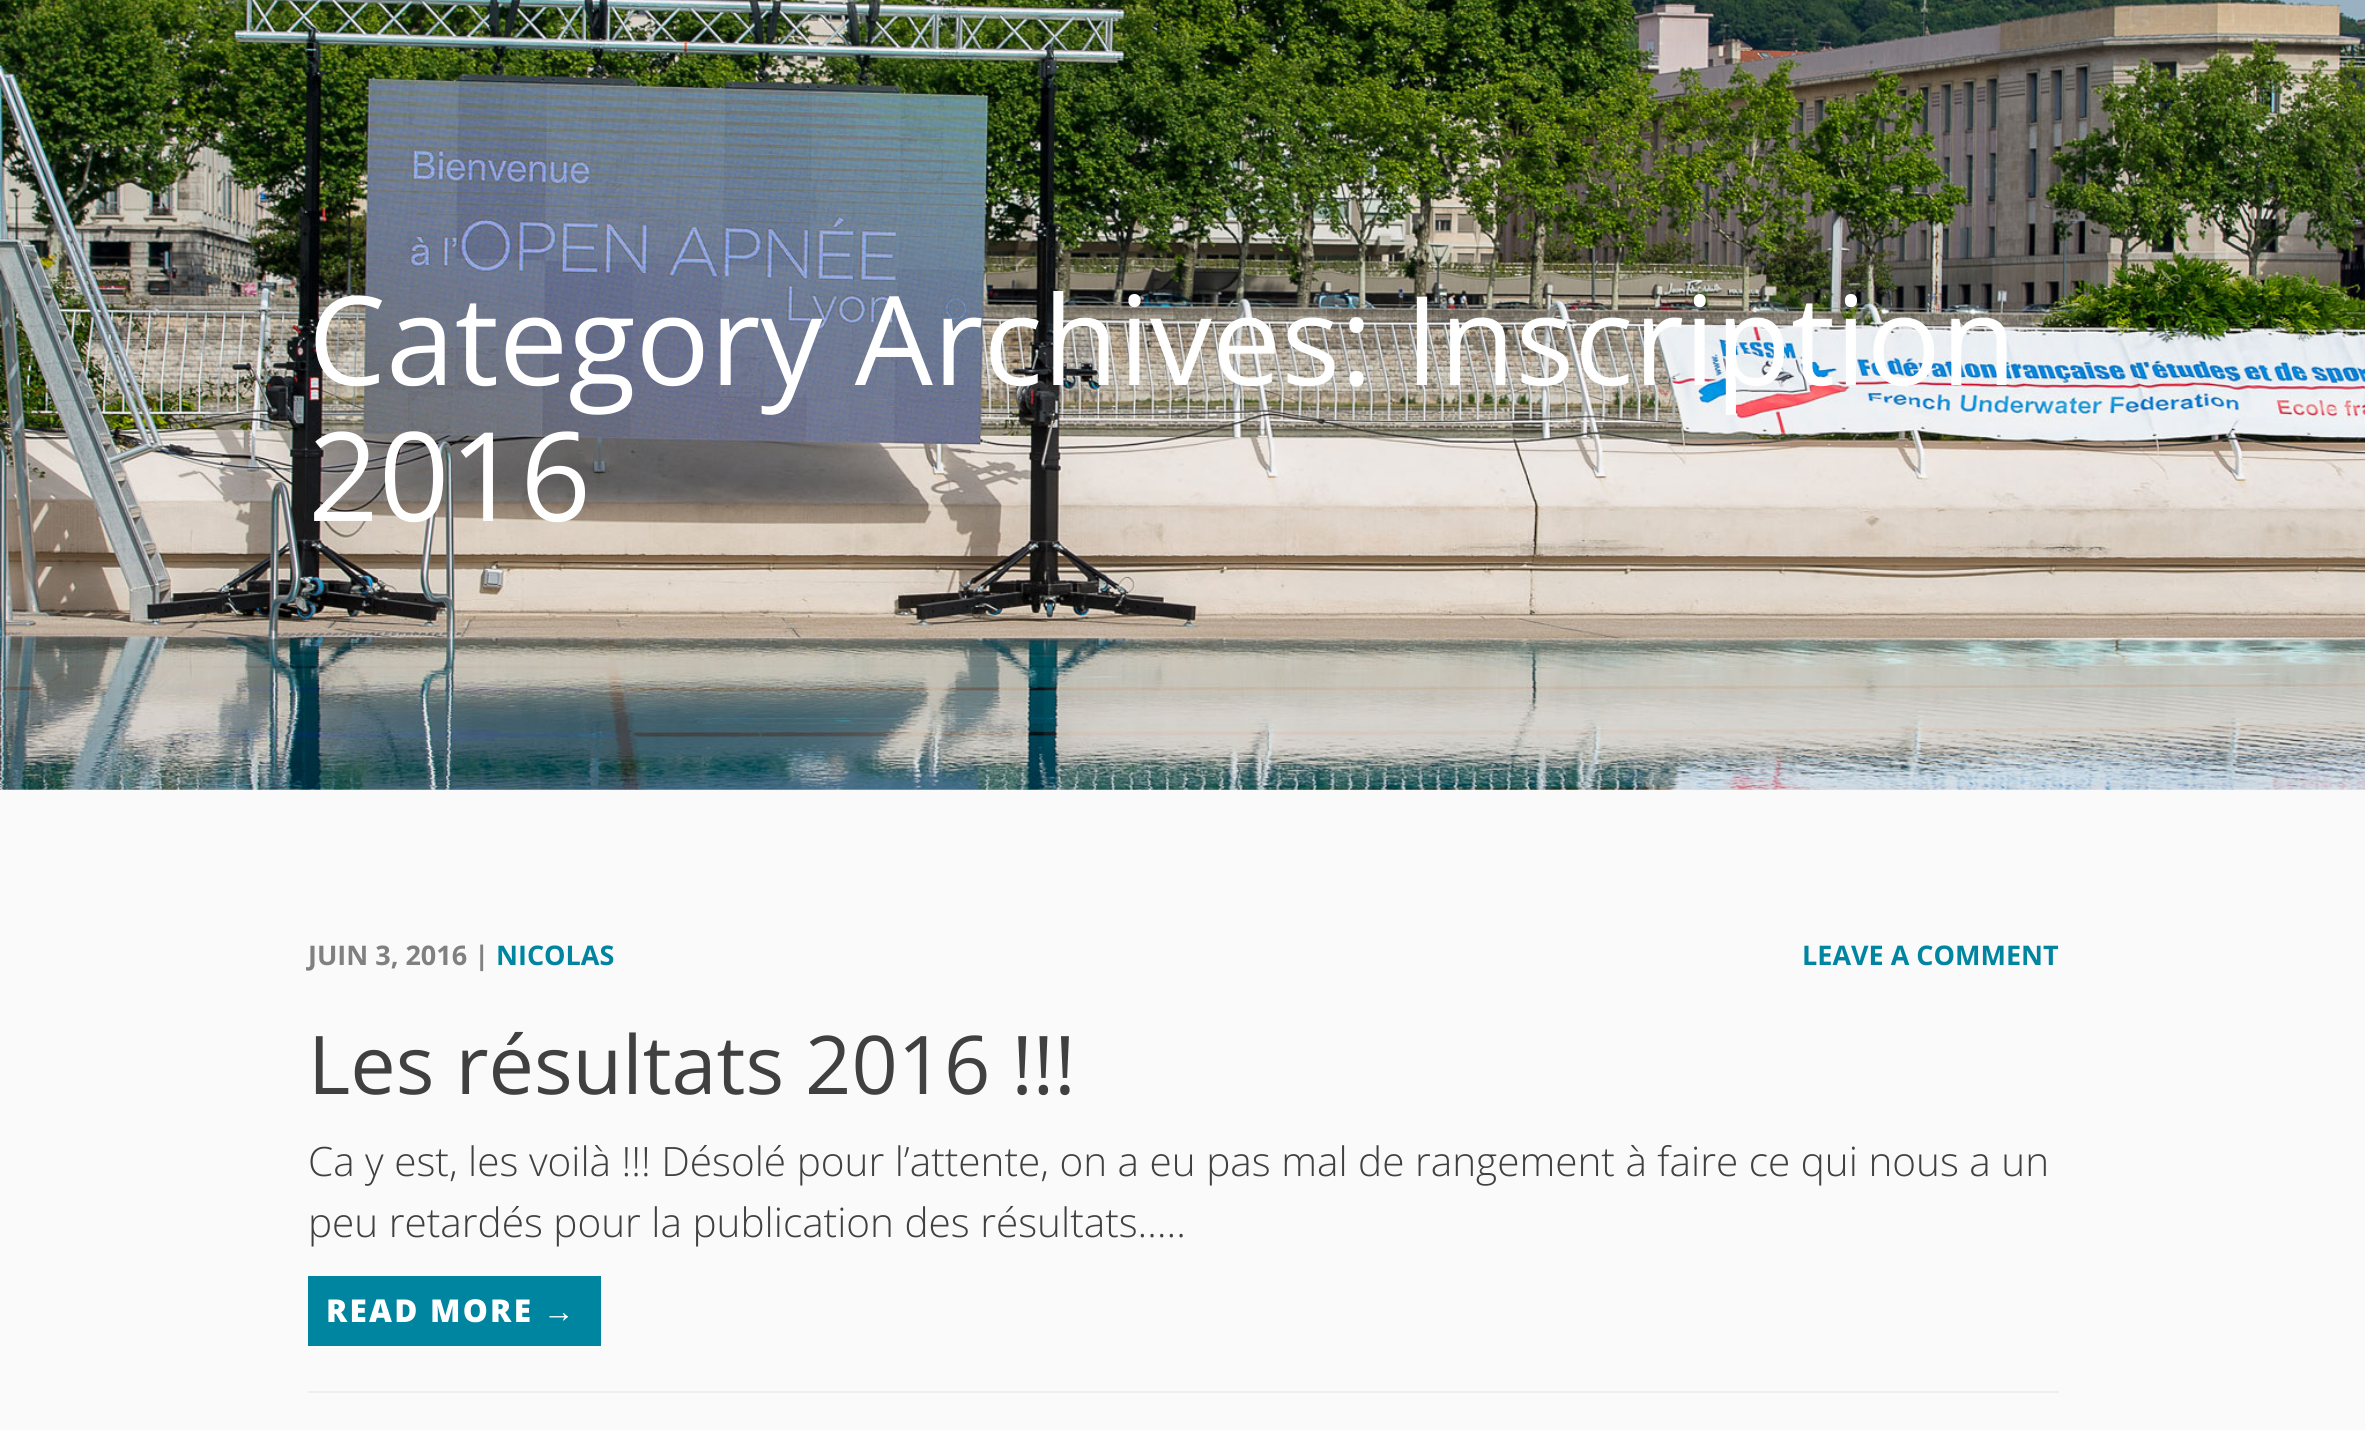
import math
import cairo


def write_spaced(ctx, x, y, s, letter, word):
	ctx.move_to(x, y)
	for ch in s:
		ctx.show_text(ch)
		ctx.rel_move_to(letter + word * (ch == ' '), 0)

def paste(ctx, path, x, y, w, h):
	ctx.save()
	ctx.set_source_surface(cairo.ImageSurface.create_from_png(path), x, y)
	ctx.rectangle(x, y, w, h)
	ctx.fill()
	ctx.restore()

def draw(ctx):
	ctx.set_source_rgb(0.98, 0.98, 0.98)
	ctx.paint()
	paste(ctx, 'media/1.png', 0, 0, 2365, 790)
	ctx.select_font_face('Open Sans')
	ctx.set_font_size(123.75)
	ctx.set_source_rgb(1, 1, 1)
	ctx.move_to(308, 385)
	ctx.show_text('Category Archives: Inscription')
	ctx.move_to(308, 521)
	ctx.show_text('2016')
	ctx.select_font_face('Open Sans', cairo.FONT_SLANT_NORMAL, cairo.FONT_WEIGHT_BOLD)
	ctx.set_font_size(27)
	ctx.set_source_rgb(0.502, 0.502, 0.502)
	ctx.move_to(308, 965)
	ctx.show_text('JUIN 3, 2016 |')
	ctx.set_source_rgb(0, 0.522, 0.631)
	ctx.move_to(496, 965)
	ctx.show_text('NICOLAS')
	ctx.move_to(1802, 965)
	ctx.show_text('LEAVE A COMMENT')
	ctx.select_font_face('Open Sans')
	ctx.set_font_size(81)
	ctx.set_source_rgb(0.251, 0.251, 0.251)
	ctx.move_to(308, 1094)
	ctx.show_text('Les résultats 2016 !!!')
	ctx.select_font_face('Open Sans Light')
	ctx.set_font_size(40.5)
	ctx.move_to(308, 1176)
	ctx.show_text('Ca y est, les voilà !!! Désolé pour l’attente, on a eu pas mal de rangement à faire ce qui nous a un')
	ctx.move_to(308, 1237)
	ctx.show_text('peu retardés pour la publication des résultats…..')
	ctx.set_source_rgb(0, 0.522, 0.631)
	ctx.rectangle(308, 1276, 293, 70)
	ctx.fill()
	ctx.select_font_face('Open Sans ExtraBold')
	ctx.set_font_size(31.5)
	ctx.set_source_rgb(1, 1, 1)
	write_spaced(ctx, 326, 1322, 'READ MORE', 2.25, 0)
	ctx.select_font_face('Liberation Sans', cairo.FONT_SLANT_NORMAL, cairo.FONT_WEIGHT_BOLD)
	write_spaced(ctx, 543, 1322, '→', 2.25, 0)
	ctx.set_source_rgb(0.933, 0.933, 0.933)
	ctx.rectangle(308, 1391, 1751, 2)
	ctx.fill()


surface = cairo.ImageSurface(cairo.FORMAT_RGB24, 2365, 1430)
ctx = cairo.Context(surface)
options = cairo.FontOptions()
options.set_hint_metrics(cairo.HINT_METRICS_OFF)
options.set_hint_style(cairo.HINT_STYLE_NONE)
ctx.set_font_options(options)
ctx.set_miter_limit(4)
draw(ctx)
surface.write_to_png('image.png')
